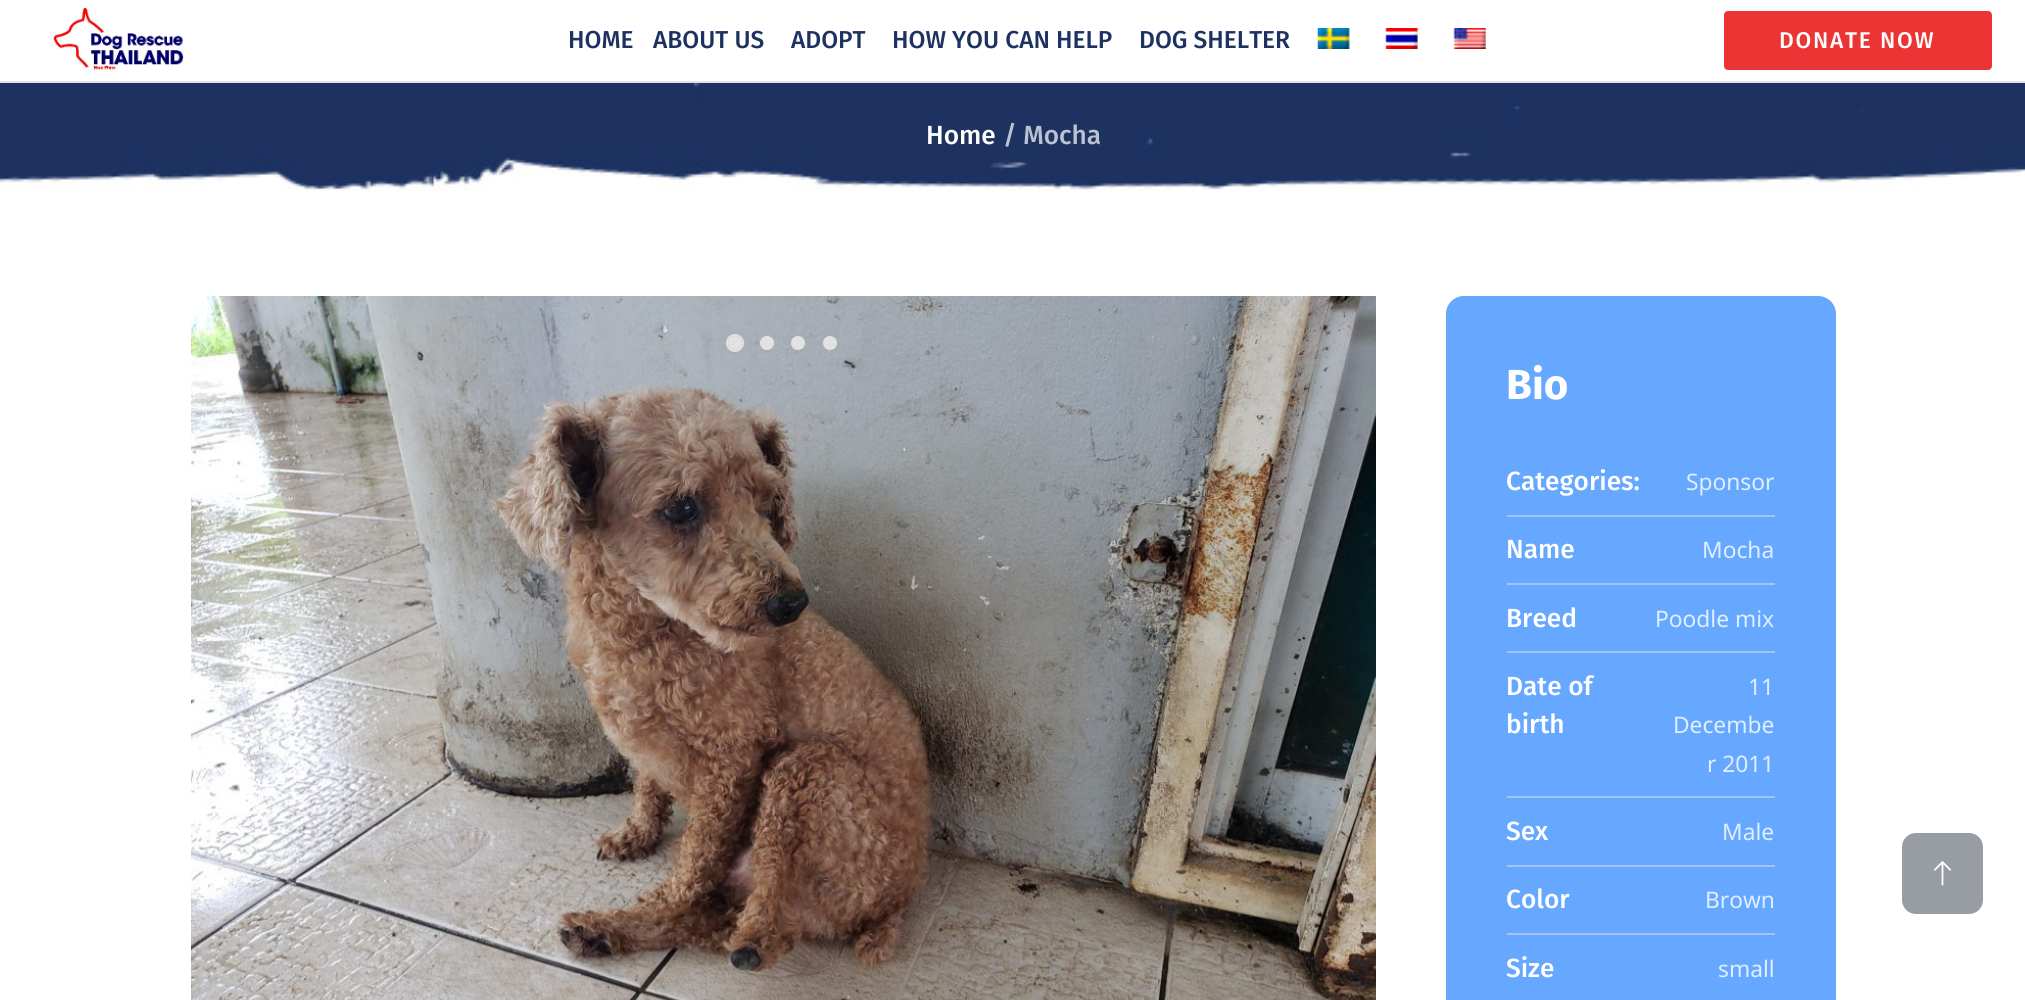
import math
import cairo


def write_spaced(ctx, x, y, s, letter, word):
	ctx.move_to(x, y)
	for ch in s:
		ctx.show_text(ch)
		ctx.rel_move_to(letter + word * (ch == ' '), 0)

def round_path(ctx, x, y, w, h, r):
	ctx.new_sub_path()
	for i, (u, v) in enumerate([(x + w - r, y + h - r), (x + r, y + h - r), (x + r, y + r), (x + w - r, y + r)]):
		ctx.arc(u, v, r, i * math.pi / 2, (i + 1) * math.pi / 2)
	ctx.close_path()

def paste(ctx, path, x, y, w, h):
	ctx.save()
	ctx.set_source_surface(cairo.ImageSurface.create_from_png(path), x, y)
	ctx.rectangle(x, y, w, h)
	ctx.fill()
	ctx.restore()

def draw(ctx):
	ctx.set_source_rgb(1, 1, 1)
	ctx.paint()
	ctx.set_source_rgb(0.886, 0.886, 0.886)
	ctx.rectangle(0, 81, 2025, 2)
	ctx.fill()
	paste(ctx, 'media/1.png', 53, 7, 131, 65)
	ctx.select_font_face('Fira Sans Medium')
	ctx.set_font_size(24.5)
	ctx.set_source_rgb(0.114, 0.196, 0.38)
	for x, y, s in [
		(568, 48, 'HOME'),
		(653, 48, 'ABOUT US'),
		(791, 48, 'ADOPT'),
		(892, 48, 'HOW YOU CAN HELP'),
		(1139, 48, 'DOG SHELTER'),
	]:
		ctx.move_to(x, y)
		ctx.show_text(s)
	paste(ctx, 'media/2.png', 1317, 28, 33, 21)
	paste(ctx, 'media/3.png', 1385, 28, 33, 21)
	paste(ctx, 'media/4.png', 1453, 28, 33, 21)
	ctx.set_source_rgb(0.929, 0.204, 0.204)
	round_path(ctx, 1726, 13, 264, 55, 2)
	ctx.fill_preserve()
	ctx.set_line_width(4)
	ctx.stroke()
	ctx.set_font_size(22.75)
	ctx.set_source_rgb(1, 1, 1)
	write_spaced(ctx, 1779, 48, 'DONATE NOW', 1.75, 0)
	paste(ctx, 'media/5.png', 0, 83, 2025, 108)
	ctx.set_font_size(26.25)
	ctx.move_to(926, 144)
	ctx.show_text('Home')
	ctx.set_source_rgb(0.733, 0.761, 0.816)
	ctx.move_to(1003, 144)
	ctx.show_text('/ Mocha')
	paste(ctx, 'media/6.png', 191, 296, 1185, 704)
	ctx.arc(735, 343, 8, 0, 2 * math.pi)
	ctx.set_source_rgb(0.886, 0.886, 0.886)
	ctx.set_line_width(2)
	ctx.stroke()
	ctx.arc(735, 343, 7, 0, 2 * math.pi)
	ctx.fill()
	ctx.arc(767, 343, 7, 0, 2 * math.pi)
	ctx.fill()
	ctx.arc(798, 343, 7, 0, 2 * math.pi)
	ctx.fill()
	ctx.arc(830, 343, 7, 0, 2 * math.pi)
	ctx.fill()
	ctx.set_source_rgb(0.4, 0.659, 1)
	ctx.new_path()
	ctx.move_to(1464, 296)
	ctx.line_to(1818, 296)
	ctx.curve_to(1828, 296, 1836, 304, 1836, 314)
	ctx.line_to(1836, 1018)
	ctx.line_to(1446, 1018)
	ctx.line_to(1446, 314)
	ctx.curve_to(1446, 304, 1454, 296, 1464, 296)
	ctx.close_path()
	ctx.fill()
	ctx.select_font_face('Fira Sans', cairo.FONT_SLANT_NORMAL, cairo.FONT_WEIGHT_BOLD)
	ctx.set_font_size(42)
	ctx.set_source_rgb(1, 1, 1)
	ctx.move_to(1506, 399)
	ctx.show_text('Bio')
	ctx.set_source_rgb(0.643, 0.773, 0.945)
	ctx.rectangle(1507, 515, 268, 2)
	ctx.fill()
	ctx.select_font_face('Fira Sans Medium')
	ctx.set_font_size(26.25)
	ctx.set_source_rgb(1, 1, 1)
	ctx.move_to(1506, 490)
	ctx.show_text('Categories:')
	ctx.select_font_face('Noto Sans')
	ctx.set_font_size(22.75)
	ctx.set_source_rgb(0.878, 0.933, 1)
	ctx.move_to(1686, 490)
	ctx.show_text('Sponsor')
	ctx.set_source_rgb(0.643, 0.773, 0.945)
	ctx.rectangle(1507, 583, 268, 2)
	ctx.fill()
	ctx.select_font_face('Fira Sans Medium')
	ctx.set_font_size(26.25)
	ctx.set_source_rgb(1, 1, 1)
	ctx.move_to(1506, 558)
	ctx.show_text('Name')
	ctx.select_font_face('Noto Sans')
	ctx.set_font_size(22.75)
	ctx.set_source_rgb(0.878, 0.933, 1)
	ctx.move_to(1702, 558)
	ctx.show_text('Mocha')
	ctx.set_source_rgb(0.643, 0.773, 0.945)
	ctx.rectangle(1507, 651, 268, 2)
	ctx.fill()
	ctx.select_font_face('Fira Sans Medium')
	ctx.set_font_size(26.25)
	ctx.set_source_rgb(1, 1, 1)
	ctx.move_to(1506, 627)
	ctx.show_text('Breed')
	ctx.select_font_face('Noto Sans')
	ctx.set_font_size(22.75)
	ctx.set_source_rgb(0.878, 0.933, 1)
	ctx.move_to(1655, 627)
	ctx.show_text('Poodle mix')
	ctx.set_source_rgb(0.643, 0.773, 0.945)
	ctx.rectangle(1507, 796, 268, 2)
	ctx.fill()
	ctx.select_font_face('Fira Sans Medium')
	ctx.set_font_size(26.25)
	ctx.set_source_rgb(1, 1, 1)
	ctx.move_to(1506, 695)
	ctx.show_text('Date of')
	ctx.move_to(1506, 733)
	ctx.show_text('birth')
	ctx.select_font_face('Noto Sans')
	ctx.set_font_size(22.75)
	ctx.set_source_rgb(0.878, 0.933, 1)
	for x, y, s in [
		(1748, 695, '11'),
		(1673, 733, 'Decembe'),
		(1707, 772, 'r 2011'),
	]:
		ctx.move_to(x, y)
		ctx.show_text(s)
	ctx.set_source_rgb(0.643, 0.773, 0.945)
	ctx.rectangle(1507, 865, 268, 2)
	ctx.fill()
	ctx.select_font_face('Fira Sans Medium')
	ctx.set_font_size(26.25)
	ctx.set_source_rgb(1, 1, 1)
	ctx.move_to(1506, 840)
	ctx.show_text('Sex')
	ctx.select_font_face('Noto Sans')
	ctx.set_font_size(22.75)
	ctx.set_source_rgb(0.878, 0.933, 1)
	ctx.move_to(1722, 840)
	ctx.show_text('Male')
	ctx.set_source_rgb(0.643, 0.773, 0.945)
	ctx.rectangle(1507, 933, 268, 2)
	ctx.fill()
	ctx.select_font_face('Fira Sans Medium')
	ctx.set_font_size(26.25)
	ctx.set_source_rgb(1, 1, 1)
	ctx.move_to(1506, 908)
	ctx.show_text('Color')
	ctx.select_font_face('Noto Sans')
	ctx.set_font_size(22.75)
	ctx.set_source_rgb(0.878, 0.933, 1)
	ctx.move_to(1705, 908)
	ctx.show_text('Brown')
	ctx.select_font_face('Fira Sans Medium')
	ctx.set_font_size(26.25)
	ctx.set_source_rgb(1, 1, 1)
	ctx.move_to(1506, 977)
	ctx.show_text('Size')
	ctx.select_font_face('Noto Sans')
	ctx.set_font_size(22.75)
	ctx.set_source_rgb(0.878, 0.933, 1)
	ctx.move_to(1718, 977)
	ctx.show_text('small')
	ctx.set_source_rgb(0.596, 0.612, 0.639)
	round_path(ctx, 1902, 833, 81, 81, 14)
	ctx.fill()
	paste(ctx, 'media/7.png', 1934, 861, 17, 25)


surface = cairo.ImageSurface(cairo.FORMAT_RGB24, 2025, 1000)
ctx = cairo.Context(surface)
options = cairo.FontOptions()
options.set_hint_metrics(cairo.HINT_METRICS_OFF)
options.set_hint_style(cairo.HINT_STYLE_NONE)
ctx.set_font_options(options)
ctx.set_miter_limit(4)
draw(ctx)
surface.write_to_png('image.png')
